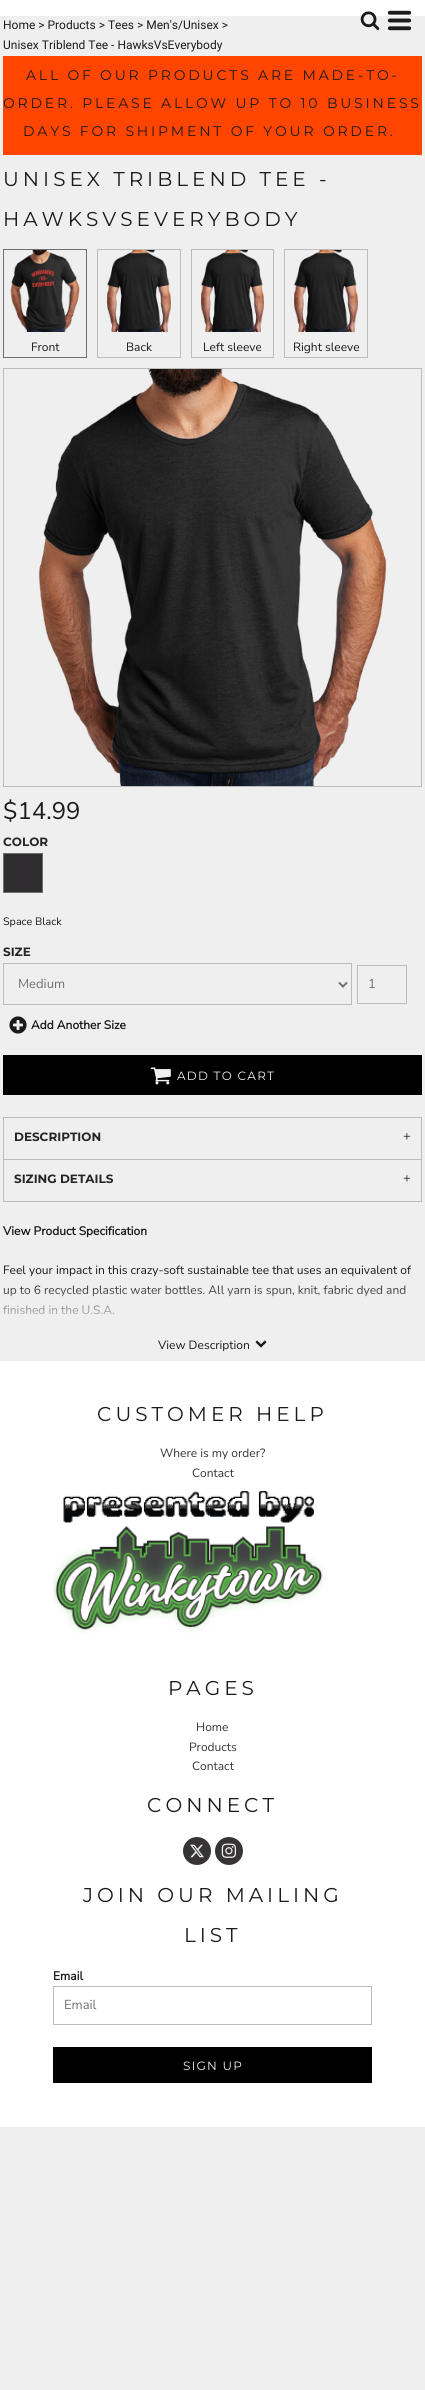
import math
import cairo


def write_spaced(ctx, x, y, s, letter, word):
	ctx.move_to(x, y)
	for ch in s:
		ctx.show_text(ch)
		ctx.rel_move_to(letter + word * (ch == ' '), 0)

def paste(ctx, path, x, y, w, h):
	ctx.save()
	ctx.set_source_surface(cairo.ImageSurface.create_from_png(path), x, y)
	ctx.rectangle(x, y, w, h)
	ctx.fill()
	ctx.restore()

def draw(ctx):
	ctx.set_source_rgb(0.937, 0.937, 0.937)
	ctx.paint()
	ctx.set_source_rgb(1, 1, 1)
	ctx.rectangle(0, 0, 425, 16)
	ctx.fill()
	paste(ctx, 'media/1.png', 360, 11, 20, 19)
	paste(ctx, 'media/2.png', 387, 10, 25, 21)
	ctx.select_font_face('Roboto')
	ctx.set_font_size(12)
	ctx.set_source_rgb(0.11, 0.106, 0.106)
	ctx.move_to(3, 29)
	ctx.show_text('Home > Products > Tees > Men\'s/Unisex >')
	ctx.move_to(3, 49)
	ctx.show_text('Unisex Triblend Tee - HawksVsEverybody')
	ctx.set_source_rgb(1, 0.271, 0)
	ctx.rectangle(3, 56, 419, 99)
	ctx.fill()
	ctx.select_font_face('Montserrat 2 Thin')
	ctx.set_font_size(14)
	ctx.set_source_rgb(0.11, 0.106, 0.106)
	for x, y, s in [
		(26, 80, 'ALL OF OUR PRODUCTS ARE MADE-TO-'),
		(3, 108, 'ORDER. PLEASE ALLOW UP TO 10 BUSINESS'),
		(23, 136, 'DAYS FOR SHIPMENT OF YOUR ORDER.'),
	]:
		write_spaced(ctx, x, y, s, 2.8, 0)
	ctx.set_font_size(20)
	write_spaced(ctx, 3, 186, 'UNISEX TRIBLEND TEE -', 4, 0)
	write_spaced(ctx, 3, 226, 'HAWKSVSEVERYBODY', 4, 0)
	ctx.rectangle(3.5, 249.5, 83, 108)
	ctx.set_source_rgb(0.439, 0.439, 0.439)
	ctx.set_line_width(1)
	ctx.stroke()
	paste(ctx, 'media/3.png', 10, 250, 70, 82)
	ctx.select_font_face('Nunito Sans ExtraLight')
	ctx.set_font_size(12)
	ctx.set_source_rgb(0.11, 0.106, 0.106)
	ctx.move_to(31, 351)
	ctx.show_text('Front')
	ctx.rectangle(97.5, 249.5, 83, 108)
	ctx.set_source_rgb(0.737, 0.737, 0.737)
	ctx.stroke()
	paste(ctx, 'media/4.png', 106, 250, 65, 82)
	ctx.set_source_rgb(0.11, 0.106, 0.106)
	ctx.move_to(126, 351)
	ctx.show_text('Back')
	ctx.rectangle(191.5, 249.5, 82, 108)
	ctx.set_source_rgb(0.737, 0.737, 0.737)
	ctx.stroke()
	paste(ctx, 'media/5.png', 200, 250, 64, 82)
	ctx.set_source_rgb(0.11, 0.106, 0.106)
	ctx.move_to(203, 351)
	ctx.show_text('Left sleeve')
	ctx.rectangle(284.5, 249.5, 83, 108)
	ctx.set_source_rgb(0.737, 0.737, 0.737)
	ctx.stroke()
	paste(ctx, 'media/4.png', 293, 250, 65, 82)
	ctx.set_source_rgb(0.11, 0.106, 0.106)
	ctx.move_to(293, 351)
	ctx.show_text('Right sleeve')
	ctx.rectangle(3.5, 368.5, 418, 418)
	ctx.set_source_rgb(0.737, 0.737, 0.737)
	ctx.stroke()
	paste(ctx, 'media/6.png', 38, 369, 350, 417)
	ctx.set_font_size(24)
	ctx.set_source_rgb(0.11, 0.106, 0.106)
	ctx.move_to(3, 819)
	ctx.show_text('$14.99')
	ctx.select_font_face('Montserrat Thin')
	ctx.set_font_size(12)
	ctx.set_source_rgb(0.145, 0.145, 0.145)
	ctx.move_to(3, 846)
	ctx.show_text('COLOR')
	ctx.rectangle(3.5, 853.5, 39, 39)
	ctx.set_source_rgb(0.439, 0.439, 0.439)
	ctx.stroke()
	ctx.set_source_rgb(0.184, 0.173, 0.188)
	ctx.rectangle(4, 854, 38, 38)
	ctx.fill()
	ctx.select_font_face('Nunito Sans ExtraLight')
	ctx.set_font_size(10.75)
	ctx.set_source_rgb(0.11, 0.106, 0.106)
	ctx.move_to(3, 925)
	ctx.show_text('Space Black')
	ctx.select_font_face('Montserrat Thin')
	ctx.set_font_size(12)
	ctx.set_source_rgb(0.145, 0.145, 0.145)
	ctx.move_to(3, 956)
	ctx.show_text('SIZE')
	ctx.rectangle(3.5, 963.5, 348, 41)
	ctx.set_source_rgb(0.737, 0.737, 0.737)
	ctx.stroke()
	ctx.new_path()
	ctx.move_to(339, 982.5)
	ctx.line_to(343, 986.5)
	ctx.line_to(347, 982.5)
	ctx.set_source_rgb(0.443, 0.443, 0.443)
	ctx.set_line_width(2)
	ctx.stroke()
	ctx.select_font_face('Nunito Sans ExtraLight')
	ctx.set_font_size(13)
	ctx.move_to(18, 988)
	ctx.show_text('Medium')
	ctx.rectangle(357.5, 965.5, 49, 38)
	ctx.set_source_rgb(0.737, 0.737, 0.737)
	ctx.set_line_width(1)
	ctx.stroke()
	ctx.set_source_rgb(0.443, 0.443, 0.443)
	ctx.move_to(368, 988)
	ctx.show_text('1')
	ctx.select_font_face('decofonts')
	ctx.set_font_size(20)
	ctx.set_source_rgb(0.11, 0.106, 0.106)
	ctx.move_to(8, 1035)
	ctx.show_text('0')
	ctx.select_font_face('Nunito Sans', cairo.FONT_SLANT_NORMAL, cairo.FONT_WEIGHT_BOLD)
	ctx.set_font_size(12)
	ctx.move_to(31, 1029)
	ctx.show_text('Add Another Size')
	ctx.set_source_rgb(0, 0, 0)
	ctx.rectangle(3, 1055, 419, 40)
	ctx.fill()
	paste(ctx, 'media/7.png', 150, 1067, 21, 18)
	ctx.select_font_face('Montserrat 2 Thin')
	ctx.set_source_rgb(0.937, 0.937, 0.937)
	write_spaced(ctx, 177, 1080, 'ADD TO CART', 1.25, 0)
	ctx.rectangle(3.5, 1117.5, 418, 84)
	ctx.set_source_rgb(0.737, 0.737, 0.737)
	ctx.stroke()
	ctx.select_font_face('Montserrat Thin')
	ctx.set_source_rgb(0.145, 0.145, 0.145)
	ctx.move_to(14, 1141)
	ctx.show_text('DESCRIPTION')
	ctx.select_font_face('Nunito Sans ExtraLight')
	ctx.set_font_size(13)
	ctx.move_to(403, 1140)
	ctx.show_text('+')
	ctx.set_source_rgb(0.737, 0.737, 0.737)
	ctx.rectangle(4, 1159, 417, 1)
	ctx.fill()
	ctx.select_font_face('Montserrat Thin')
	ctx.set_font_size(12)
	ctx.set_source_rgb(0.145, 0.145, 0.145)
	ctx.move_to(14, 1183)
	ctx.show_text('SIZING DETAILS')
	ctx.select_font_face('Nunito Sans ExtraLight')
	ctx.set_font_size(13)
	ctx.move_to(403, 1182)
	ctx.show_text('+')
	ctx.select_font_face('Nunito Sans', cairo.FONT_SLANT_NORMAL, cairo.FONT_WEIGHT_BOLD)
	ctx.set_font_size(12)
	ctx.set_source_rgb(0.11, 0.106, 0.106)
	ctx.move_to(3, 1235)
	ctx.show_text('View Product Specification')
	ctx.select_font_face('Nunito Sans ExtraLight')
	for x, y, s in [
		(3, 1274, 'Feel your impact in this crazy-soft sustainable tee that uses an equivalent of'),
		(3, 1294, 'up to 6 recycled plastic water bottles. All yarn is spun, knit, fabric dyed and'),
		(3, 1314, 'finished in the U.S.A.'),
	]:
		ctx.move_to(x, y)
		ctx.show_text(s)
	gradient = cairo.LinearGradient(213, 1361, 213, 1281)
	gradient.add_color_stop_rgba(0, 0.937, 0.937, 0.937, 1)
	gradient.add_color_stop_rgba(0.4, 0.937, 0.937, 0.937, 1)
	gradient.add_color_stop_rgba(1, 0.937, 0.937, 0.937, 0)
	ctx.set_source(gradient)
	ctx.rectangle(3, 1285, 403, 30)
	ctx.fill()
	ctx.set_source_rgb(0.11, 0.106, 0.106)
	ctx.move_to(158, 1349)
	ctx.show_text('View Description')
	paste(ctx, 'media/8.png', 255, 1340, 12, 8)
	ctx.set_source_rgb(1, 1, 1)
	ctx.rectangle(0, 1361, 425, 766)
	ctx.fill()
	ctx.select_font_face('Montserrat 2 Thin')
	ctx.set_font_size(20)
	ctx.set_source_rgb(0.11, 0.106, 0.106)
	write_spaced(ctx, 97, 1421, 'CUSTOMER HELP', 4, 0)
	ctx.select_font_face('Nunito Sans ExtraLight')
	ctx.set_font_size(12)
	ctx.set_source_rgb(0.212, 0.204, 0.204)
	ctx.move_to(160, 1457)
	ctx.show_text('Where is my order?')
	ctx.move_to(192, 1477)
	ctx.show_text('Contact')
	paste(ctx, 'media/9.png', 53, 1491, 272, 143)
	ctx.select_font_face('Montserrat 2 Thin')
	ctx.set_font_size(20)
	ctx.set_source_rgb(0.11, 0.106, 0.106)
	write_spaced(ctx, 168, 1695, 'PAGES', 4, 0)
	ctx.select_font_face('Nunito Sans ExtraLight')
	ctx.set_font_size(12)
	ctx.set_source_rgb(0.212, 0.204, 0.204)
	for x, y, s in [
		(196, 1731, 'Home'),
		(189, 1751, 'Products'),
		(192, 1770, 'Contact'),
	]:
		ctx.move_to(x, y)
		ctx.show_text(s)
	ctx.select_font_face('Montserrat 2 Thin')
	ctx.set_font_size(20)
	ctx.set_source_rgb(0.11, 0.106, 0.106)
	write_spaced(ctx, 147, 1812, 'CONNECT', 4, 0)
	ctx.set_source_rgb(0.212, 0.204, 0.204)
	ctx.new_path()
	ctx.arc(197, 1851, 14, 0, 2 * math.pi)
	ctx.fill()
	paste(ctx, 'media/10.png', 190, 1844, 14, 14)
	ctx.arc(229, 1851, 14, 0, 2 * math.pi)
	ctx.fill()
	paste(ctx, 'media/11.png', 221, 1843, 16, 15)
	ctx.set_source_rgb(0.11, 0.106, 0.106)
	write_spaced(ctx, 83, 1902, 'JOIN OUR MAILING', 4, 0)
	write_spaced(ctx, 184, 1942, 'LIST', 4, 0)
	ctx.select_font_face('Nunito Sans', cairo.FONT_SLANT_NORMAL, cairo.FONT_WEIGHT_BOLD)
	ctx.set_font_size(12)
	ctx.move_to(53, 1980)
	ctx.show_text('Email')
	ctx.rectangle(53.5, 1986.5, 318, 38)
	ctx.set_source_rgb(0.737, 0.737, 0.737)
	ctx.stroke()
	ctx.select_font_face('Nunito Sans ExtraLight')
	ctx.set_font_size(13)
	ctx.set_source_rgb(0.443, 0.443, 0.443)
	ctx.move_to(64, 2009)
	ctx.show_text('Email')
	ctx.set_source_rgb(0, 0, 0)
	ctx.rectangle(53, 2047, 319, 36)
	ctx.fill()
	ctx.select_font_face('Montserrat 2 Thin')
	ctx.set_font_size(12)
	ctx.set_source_rgb(0.937, 0.937, 0.937)
	write_spaced(ctx, 183, 2070, 'SIGN UP', 1.25, 0)


surface = cairo.ImageSurface(cairo.FORMAT_RGB24, 425, 2390)
ctx = cairo.Context(surface)
options = cairo.FontOptions()
options.set_hint_metrics(cairo.HINT_METRICS_OFF)
options.set_hint_style(cairo.HINT_STYLE_NONE)
ctx.set_font_options(options)
ctx.set_miter_limit(4)
draw(ctx)
surface.write_to_png('image.png')
